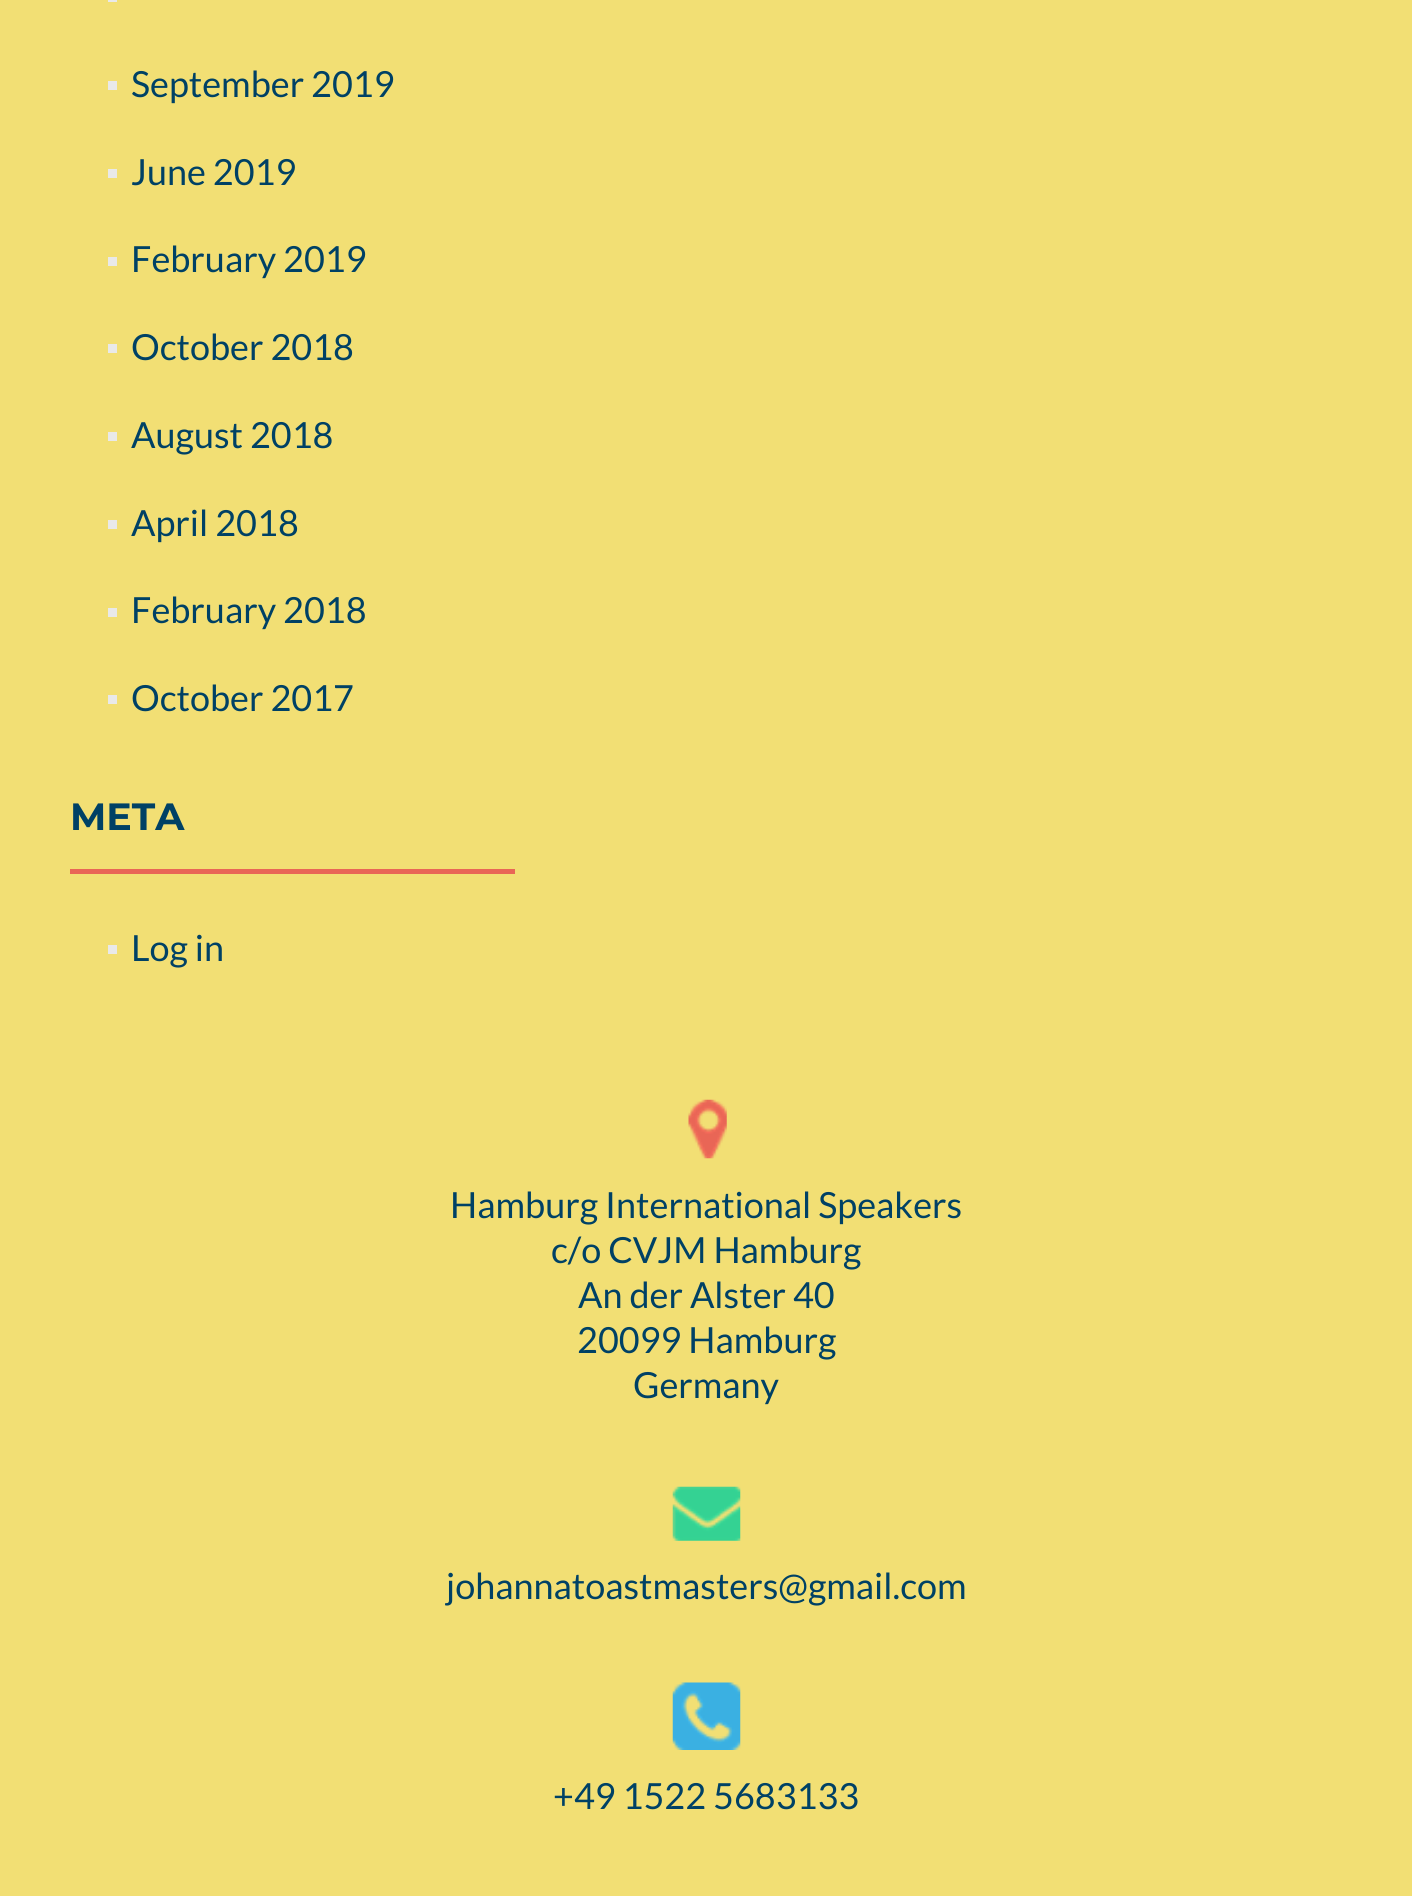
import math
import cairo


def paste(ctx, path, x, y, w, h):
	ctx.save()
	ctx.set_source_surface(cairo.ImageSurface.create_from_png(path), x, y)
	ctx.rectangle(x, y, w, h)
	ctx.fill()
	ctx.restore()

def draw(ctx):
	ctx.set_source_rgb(0.949, 0.875, 0.455)
	ctx.paint()
	ctx.set_source_rgb(0.914, 0.914, 0.914)
	ctx.rectangle(108, 0, 9, 2)
	ctx.fill()
	ctx.rectangle(108, 81, 9, 9)
	ctx.fill()
	ctx.select_font_face('Lato')
	ctx.set_font_size(36)
	ctx.set_source_rgb(0, 0.255, 0.396)
	ctx.move_to(131, 97)
	ctx.show_text('September 2019')
	ctx.set_source_rgb(0.914, 0.914, 0.914)
	ctx.rectangle(108, 169, 9, 9)
	ctx.fill()
	ctx.set_source_rgb(0, 0.255, 0.396)
	ctx.move_to(131, 185)
	ctx.show_text('June 2019')
	ctx.set_source_rgb(0.914, 0.914, 0.914)
	ctx.rectangle(108, 257, 9, 9)
	ctx.fill()
	ctx.set_source_rgb(0, 0.255, 0.396)
	ctx.move_to(131, 272)
	ctx.show_text('February 2019')
	ctx.set_source_rgb(0.914, 0.914, 0.914)
	ctx.rectangle(108, 344, 9, 9)
	ctx.fill()
	ctx.set_source_rgb(0, 0.255, 0.396)
	ctx.move_to(131, 360)
	ctx.show_text('October 2018')
	ctx.set_source_rgb(0.914, 0.914, 0.914)
	ctx.rectangle(108, 432, 9, 9)
	ctx.fill()
	ctx.set_source_rgb(0, 0.255, 0.396)
	ctx.move_to(131, 448)
	ctx.show_text('August 2018')
	ctx.set_source_rgb(0.914, 0.914, 0.914)
	ctx.rectangle(108, 520, 9, 9)
	ctx.fill()
	ctx.set_source_rgb(0, 0.255, 0.396)
	ctx.move_to(131, 536)
	ctx.show_text('April 2018')
	ctx.set_source_rgb(0.914, 0.914, 0.914)
	ctx.rectangle(108, 608, 9, 9)
	ctx.fill()
	ctx.set_source_rgb(0, 0.255, 0.396)
	ctx.move_to(131, 623)
	ctx.show_text('February 2018')
	ctx.set_source_rgb(0.914, 0.914, 0.914)
	ctx.rectangle(108, 695, 9, 9)
	ctx.fill()
	ctx.set_source_rgb(0, 0.255, 0.396)
	ctx.move_to(131, 711)
	ctx.show_text('October 2017')
	ctx.select_font_face('Montserrat Thin')
	ctx.set_font_size(38)
	ctx.move_to(70, 830)
	ctx.show_text('META')
	ctx.set_source_rgb(0.914, 0.4, 0.337)
	ctx.rectangle(70, 869, 445, 5)
	ctx.fill()
	ctx.set_source_rgb(0.914, 0.914, 0.914)
	ctx.rectangle(108, 945, 9, 9)
	ctx.fill()
	ctx.select_font_face('Lato')
	ctx.set_font_size(36)
	ctx.set_source_rgb(0, 0.255, 0.396)
	ctx.move_to(131, 961)
	ctx.show_text('Log in')
	paste(ctx, 'media/1.png', 688, 1099, 39, 60)
	for x, y, s in [
		(450, 1218, 'Hamburg International Speakers'),
		(551, 1263, 'c/o CVJM Hamburg'),
		(578, 1308, 'An der Alster 40'),
		(577, 1353, '20099 Hamburg'),
		(633, 1398, 'Germany'),
	]:
		ctx.move_to(x, y)
		ctx.show_text(s)
	paste(ctx, 'media/2.png', 672, 1486, 69, 55)
	ctx.move_to(446, 1599)
	ctx.show_text('johannatoastmasters@gmail.com')
	paste(ctx, 'media/3.png', 672, 1682, 69, 68)
	ctx.move_to(553, 1809)
	ctx.show_text('+49 1522 5683133')


surface = cairo.ImageSurface(cairo.FORMAT_RGB24, 1412, 1896)
ctx = cairo.Context(surface)
options = cairo.FontOptions()
options.set_hint_metrics(cairo.HINT_METRICS_OFF)
options.set_hint_style(cairo.HINT_STYLE_NONE)
ctx.set_font_options(options)
ctx.set_miter_limit(4)
draw(ctx)
surface.write_to_png('image.png')
